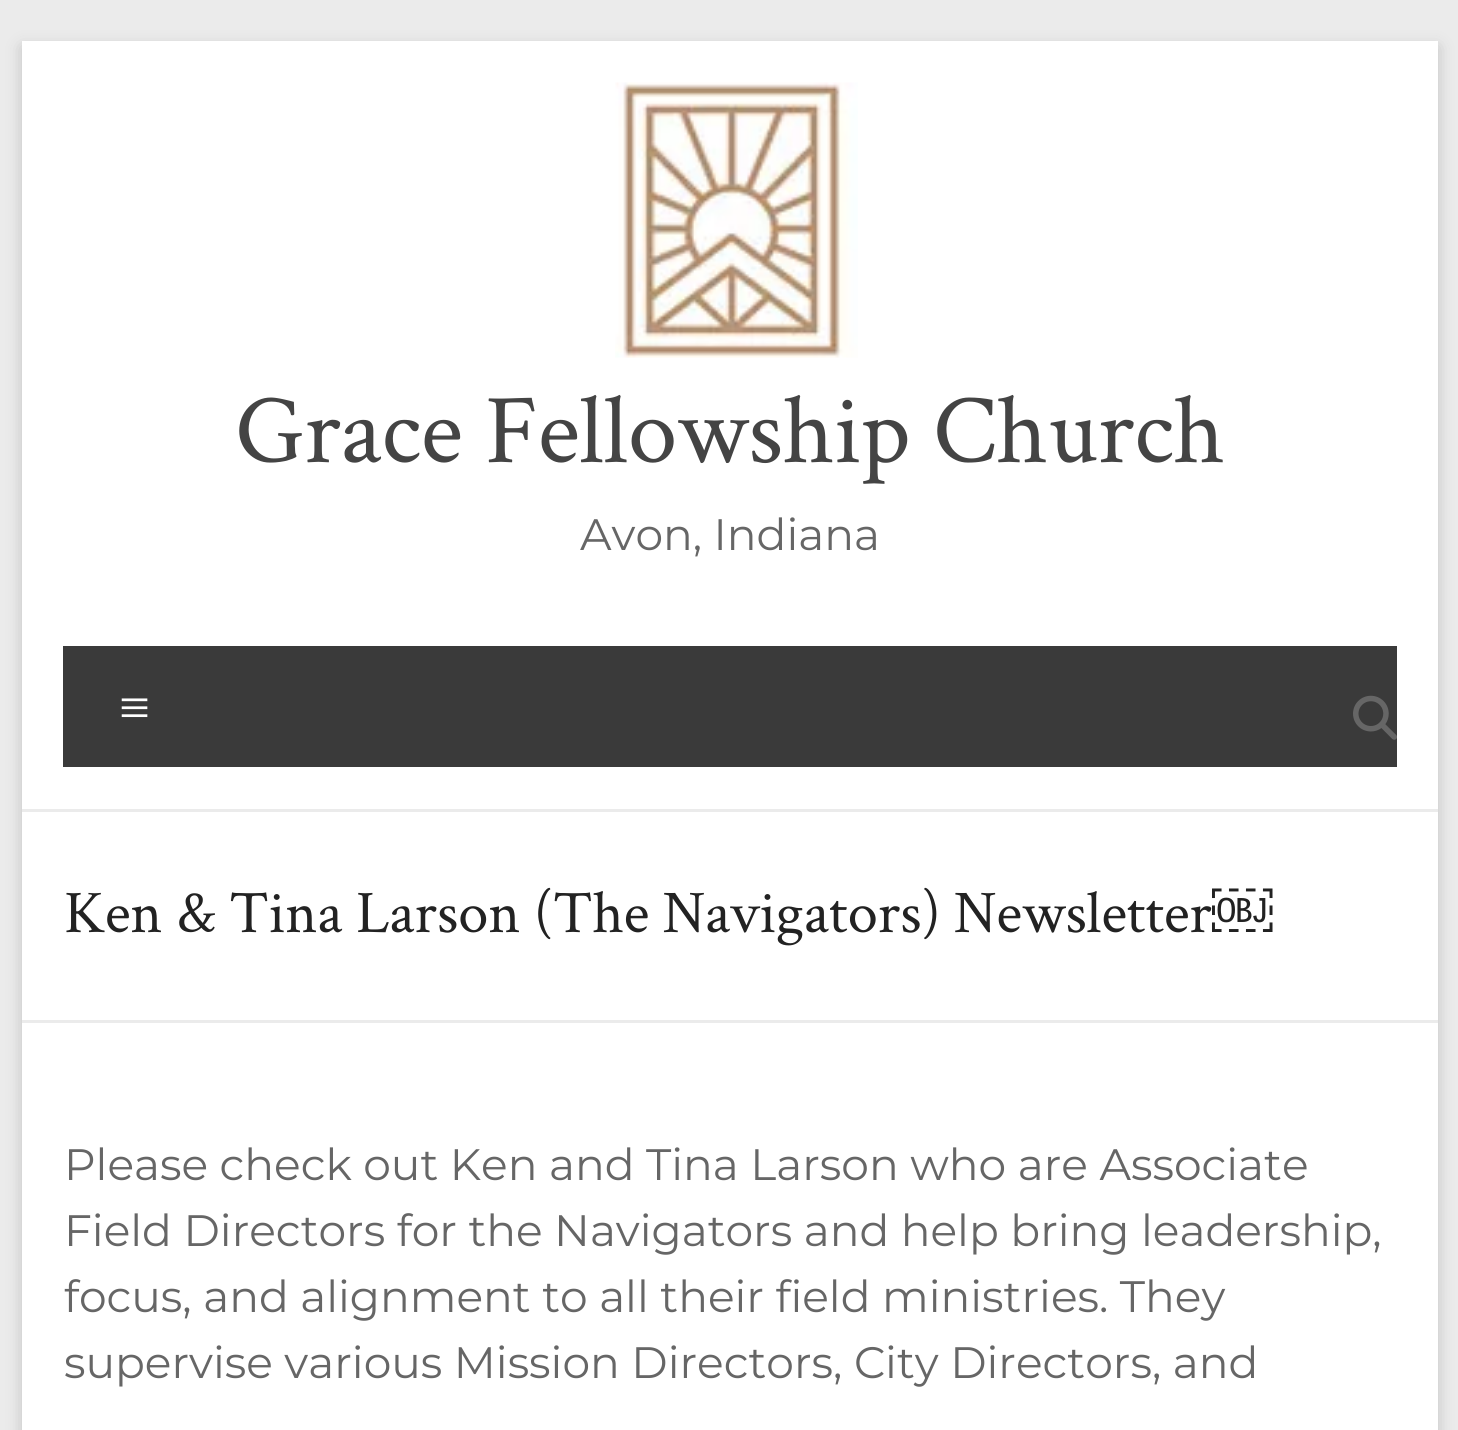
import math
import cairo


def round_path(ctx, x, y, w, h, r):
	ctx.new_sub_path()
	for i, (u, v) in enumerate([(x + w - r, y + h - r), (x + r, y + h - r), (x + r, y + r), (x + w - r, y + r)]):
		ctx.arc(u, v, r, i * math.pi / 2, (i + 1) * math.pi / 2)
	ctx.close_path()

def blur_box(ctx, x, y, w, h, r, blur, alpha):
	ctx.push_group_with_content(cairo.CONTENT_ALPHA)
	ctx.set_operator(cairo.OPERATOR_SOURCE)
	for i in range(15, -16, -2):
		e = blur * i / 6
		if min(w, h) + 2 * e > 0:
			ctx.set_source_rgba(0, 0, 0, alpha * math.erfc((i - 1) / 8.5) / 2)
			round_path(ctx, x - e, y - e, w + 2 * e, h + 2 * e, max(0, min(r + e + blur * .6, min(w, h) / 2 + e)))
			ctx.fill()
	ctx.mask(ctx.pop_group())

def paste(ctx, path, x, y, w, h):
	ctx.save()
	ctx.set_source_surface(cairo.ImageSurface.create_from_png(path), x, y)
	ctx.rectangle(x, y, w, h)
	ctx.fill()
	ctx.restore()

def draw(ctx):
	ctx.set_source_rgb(0.918, 0.918, 0.918)
	ctx.paint()
	ctx.set_source_rgb(0.392, 0.392, 0.392)
	blur_box(ctx, 22, 47, 1416, 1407, 0, 8, 0.3)
	ctx.set_source_rgb(1, 1, 1)
	ctx.rectangle(22, 41, 1416, 1389)
	ctx.fill()
	ctx.set_source_rgb(0.918, 0.918, 0.918)
	ctx.rectangle(22, 809, 1416, 3)
	ctx.fill()
	paste(ctx, 'media/1.png', 615, 82, 243, 276)
	ctx.select_font_face('Crimson Text')
	ctx.set_font_size(99)
	ctx.set_source_rgb(0.267, 0.267, 0.267)
	ctx.move_to(235, 462)
	ctx.show_text('Grace Fellowship Church')
	ctx.select_font_face('Montserrat Thin')
	ctx.set_font_size(44)
	ctx.set_source_rgb(0.4, 0.4, 0.4)
	ctx.move_to(580, 550)
	ctx.show_text('Avon, Indiana')
	ctx.set_source_rgb(0.227, 0.227, 0.227)
	ctx.rectangle(63, 646, 1334, 121)
	ctx.fill()
	ctx.select_font_face('Liberation Serif')
	ctx.set_font_size(55)
	ctx.set_source_rgb(1, 1, 1)
	ctx.move_to(119, 726)
	ctx.show_text('≡')
	paste(ctx, 'media/2.png', 1353, 695, 44, 45)
	ctx.set_source_rgb(0.918, 0.918, 0.918)
	ctx.rectangle(22, 1020, 1416, 3)
	ctx.fill()
	ctx.select_font_face('Crimson Text')
	ctx.set_font_size(60.5)
	ctx.set_source_rgb(0.133, 0.133, 0.133)
	ctx.move_to(64, 932)
	ctx.show_text('Ken & Tina Larson (The Navigators) Newsletter')
	ctx.select_font_face('Liberation Serif')
	ctx.move_to(1212, 932)
	ctx.show_text('￼')
	ctx.select_font_face('Montserrat Thin')
	ctx.set_font_size(44)
	ctx.set_source_rgb(0.4, 0.4, 0.4)
	for x, y, s in [
		(64, 1180, 'Please check out Ken and Tina Larson who are Associate'),
		(64, 1246, 'Field Directors for the Navigators and help bring leadership,'),
		(64, 1312, 'focus, and alignment to all their field ministries. They'),
		(64, 1378, 'supervise various Mission Directors, City Directors, and'),
	]:
		ctx.move_to(x, y)
		ctx.show_text(s)


surface = cairo.ImageSurface(cairo.FORMAT_RGB24, 1458, 1430)
ctx = cairo.Context(surface)
options = cairo.FontOptions()
options.set_hint_metrics(cairo.HINT_METRICS_OFF)
options.set_hint_style(cairo.HINT_STYLE_NONE)
ctx.set_font_options(options)
ctx.set_miter_limit(4)
draw(ctx)
surface.write_to_png('image.png')
